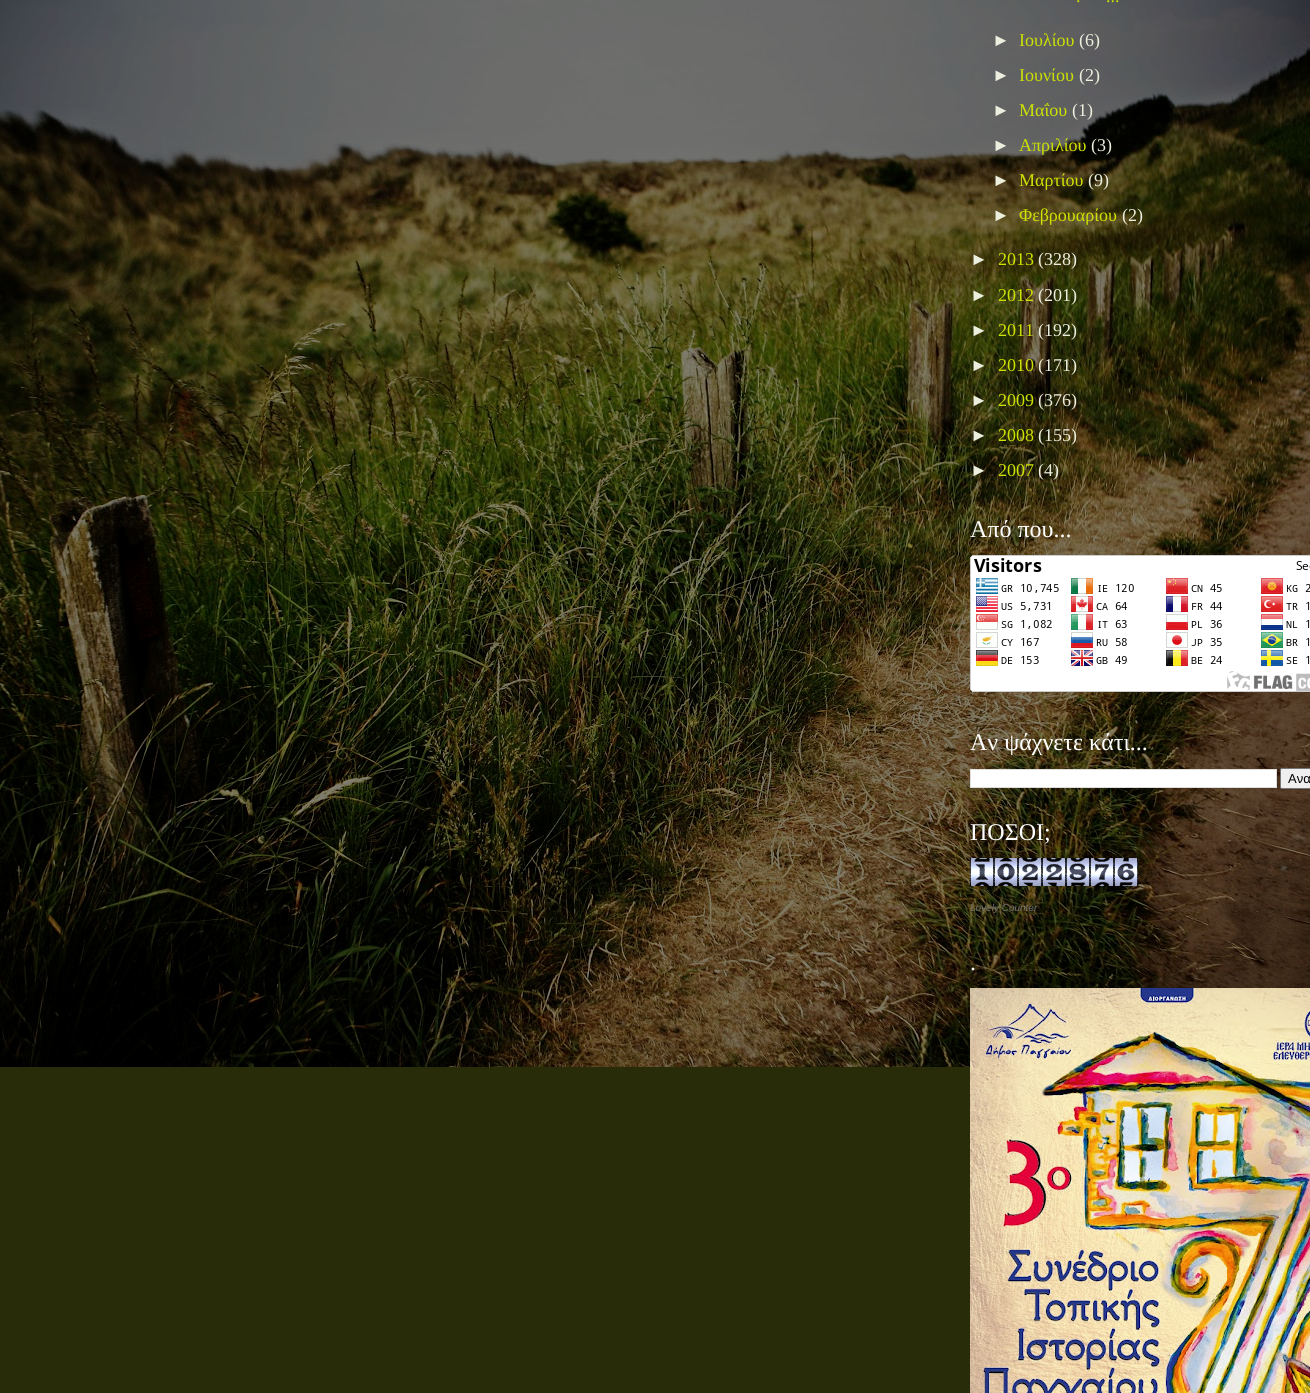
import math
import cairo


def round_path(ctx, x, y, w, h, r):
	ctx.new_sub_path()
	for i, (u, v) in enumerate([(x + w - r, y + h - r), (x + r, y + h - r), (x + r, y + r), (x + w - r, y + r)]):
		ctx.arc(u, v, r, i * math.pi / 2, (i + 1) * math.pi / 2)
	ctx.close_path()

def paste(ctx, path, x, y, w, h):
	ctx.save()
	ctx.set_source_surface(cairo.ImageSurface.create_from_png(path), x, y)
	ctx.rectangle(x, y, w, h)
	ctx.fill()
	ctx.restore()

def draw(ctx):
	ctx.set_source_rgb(0.161, 0.173, 0.035)
	ctx.paint()
	paste(ctx, 'media/1.png', 0, 0, 1310, 1067)
	ctx.select_font_face('Liberation Serif')
	ctx.set_font_size(18)
	ctx.set_source_rgb(0.8, 0.886, 0)
	ctx.move_to(1076, 2)
	ctx.show_text('.')
	ctx.move_to(1106, 2)
	ctx.show_text('...')
	ctx.select_font_face('Liberation Sans')
	ctx.set_source_rgb(0.925, 0.933, 0.871)
	ctx.move_to(992, 46)
	ctx.show_text('►')
	ctx.select_font_face('Liberation Serif')
	ctx.set_source_rgb(0.8, 0.886, 0)
	ctx.move_to(1019, 46)
	ctx.show_text('Ιουλίου')
	ctx.set_source_rgb(0.925, 0.933, 0.871)
	ctx.move_to(1079, 46)
	ctx.show_text('(6)')
	ctx.select_font_face('Liberation Sans')
	ctx.move_to(992, 81)
	ctx.show_text('►')
	ctx.select_font_face('Liberation Serif')
	ctx.set_source_rgb(0.8, 0.886, 0)
	ctx.move_to(1019, 81)
	ctx.show_text('Ιουνίου')
	ctx.set_source_rgb(0.925, 0.933, 0.871)
	ctx.move_to(1079, 81)
	ctx.show_text('(2)')
	ctx.select_font_face('Liberation Sans')
	ctx.move_to(992, 116)
	ctx.show_text('►')
	ctx.select_font_face('Liberation Serif')
	ctx.set_source_rgb(0.8, 0.886, 0)
	ctx.move_to(1019, 116)
	ctx.show_text('Μαΐου')
	ctx.set_source_rgb(0.925, 0.933, 0.871)
	ctx.move_to(1072, 116)
	ctx.show_text('(1)')
	ctx.select_font_face('Liberation Sans')
	ctx.move_to(992, 151)
	ctx.show_text('►')
	ctx.select_font_face('Liberation Serif')
	ctx.set_source_rgb(0.8, 0.886, 0)
	ctx.move_to(1019, 151)
	ctx.show_text('Απριλίου')
	ctx.set_source_rgb(0.925, 0.933, 0.871)
	ctx.move_to(1091, 151)
	ctx.show_text('(3)')
	ctx.select_font_face('Liberation Sans')
	ctx.move_to(992, 186)
	ctx.show_text('►')
	ctx.select_font_face('Liberation Serif')
	ctx.set_source_rgb(0.8, 0.886, 0)
	ctx.move_to(1019, 186)
	ctx.show_text('Μαρτίου')
	ctx.set_source_rgb(0.925, 0.933, 0.871)
	ctx.move_to(1088, 186)
	ctx.show_text('(9)')
	ctx.select_font_face('Liberation Sans')
	ctx.move_to(992, 221)
	ctx.show_text('►')
	ctx.select_font_face('Liberation Serif')
	ctx.set_source_rgb(0.8, 0.886, 0)
	ctx.move_to(1019, 221)
	ctx.show_text('Φεβρουαρίου')
	ctx.set_source_rgb(0.925, 0.933, 0.871)
	ctx.move_to(1122, 221)
	ctx.show_text('(2)')
	ctx.select_font_face('Liberation Sans')
	ctx.move_to(970, 265)
	ctx.show_text('►')
	ctx.select_font_face('Liberation Serif')
	ctx.set_source_rgb(0.8, 0.886, 0)
	ctx.move_to(998, 265)
	ctx.show_text('2013')
	ctx.set_source_rgb(0.925, 0.933, 0.871)
	ctx.move_to(1038, 265)
	ctx.show_text('(328)')
	ctx.select_font_face('Liberation Sans')
	ctx.move_to(970, 301)
	ctx.show_text('►')
	ctx.select_font_face('Liberation Serif')
	ctx.set_source_rgb(0.8, 0.886, 0)
	ctx.move_to(998, 301)
	ctx.show_text('2012')
	ctx.set_source_rgb(0.925, 0.933, 0.871)
	ctx.move_to(1038, 301)
	ctx.show_text('(201)')
	ctx.select_font_face('Liberation Sans')
	ctx.move_to(970, 336)
	ctx.show_text('►')
	ctx.select_font_face('Liberation Serif')
	ctx.set_source_rgb(0.8, 0.886, 0)
	ctx.move_to(998, 336)
	ctx.show_text('2011')
	ctx.set_source_rgb(0.925, 0.933, 0.871)
	ctx.move_to(1038, 336)
	ctx.show_text('(192)')
	ctx.select_font_face('Liberation Sans')
	ctx.move_to(970, 371)
	ctx.show_text('►')
	ctx.select_font_face('Liberation Serif')
	ctx.set_source_rgb(0.8, 0.886, 0)
	ctx.move_to(998, 371)
	ctx.show_text('2010')
	ctx.set_source_rgb(0.925, 0.933, 0.871)
	ctx.move_to(1038, 371)
	ctx.show_text('(171)')
	ctx.select_font_face('Liberation Sans')
	ctx.move_to(970, 406)
	ctx.show_text('►')
	ctx.select_font_face('Liberation Serif')
	ctx.set_source_rgb(0.8, 0.886, 0)
	ctx.move_to(998, 406)
	ctx.show_text('2009')
	ctx.set_source_rgb(0.925, 0.933, 0.871)
	ctx.move_to(1038, 406)
	ctx.show_text('(376)')
	ctx.select_font_face('Liberation Sans')
	ctx.move_to(970, 441)
	ctx.show_text('►')
	ctx.select_font_face('Liberation Serif')
	ctx.set_source_rgb(0.8, 0.886, 0)
	ctx.move_to(998, 441)
	ctx.show_text('2008')
	ctx.set_source_rgb(0.925, 0.933, 0.871)
	ctx.move_to(1038, 441)
	ctx.show_text('(155)')
	ctx.select_font_face('Liberation Sans')
	ctx.move_to(970, 476)
	ctx.show_text('►')
	ctx.select_font_face('Liberation Serif')
	ctx.set_source_rgb(0.8, 0.886, 0)
	ctx.move_to(998, 476)
	ctx.show_text('2007')
	ctx.set_source_rgb(0.925, 0.933, 0.871)
	ctx.move_to(1038, 476)
	ctx.show_text('(4)')
	ctx.set_font_size(24)
	ctx.set_source_rgb(1, 1, 1)
	ctx.move_to(970, 537)
	ctx.show_text('Από που...')
	paste(ctx, 'media/2.png', 970, 555, 340, 137)
	ctx.move_to(970, 750)
	ctx.show_text('Αν ψάχνετε κάτι...')
	ctx.rectangle(970.5, 769.5, 306, 18)
	ctx.fill_preserve()
	ctx.set_source_rgb(0.867, 0.867, 0.867)
	ctx.set_line_width(1)
	ctx.stroke()
	ctx.set_source_rgb(0.937, 0.937, 0.937)
	round_path(ctx, 1280.5, 768.5, 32, 20, 1.5)
	ctx.fill_preserve()
	ctx.set_source_rgb(0.463, 0.463, 0.463)
	ctx.stroke()
	ctx.select_font_face('Liberation Sans')
	ctx.set_font_size(13)
	ctx.set_source_rgb(0, 0, 0)
	ctx.move_to(1288, 783)
	ctx.show_text('Ανα')
	ctx.select_font_face('Liberation Serif')
	ctx.set_font_size(24)
	ctx.set_source_rgb(1, 1, 1)
	ctx.move_to(970, 840)
	ctx.show_text('ΠΟΣΟΙ;')
	paste(ctx, 'media/3.png', 970, 858, 168, 28)
	ctx.select_font_face('Liberation Sans', cairo.FONT_SLANT_ITALIC)
	ctx.set_font_size(10)
	ctx.set_source_rgb(0.439, 0.443, 0.451)
	ctx.move_to(970, 911)
	ctx.show_text('Lovely Counter')
	ctx.select_font_face('Liberation Serif')
	ctx.set_font_size(24)
	ctx.set_source_rgb(1, 1, 1)
	ctx.move_to(970, 970)
	ctx.show_text('.')
	paste(ctx, 'media/4.png', 970, 988, 340, 405)


surface = cairo.ImageSurface(cairo.FORMAT_RGB24, 1310, 1393)
ctx = cairo.Context(surface)
options = cairo.FontOptions()
options.set_hint_metrics(cairo.HINT_METRICS_OFF)
options.set_hint_style(cairo.HINT_STYLE_NONE)
ctx.set_font_options(options)
ctx.set_miter_limit(4)
draw(ctx)
surface.write_to_png('image.png')
